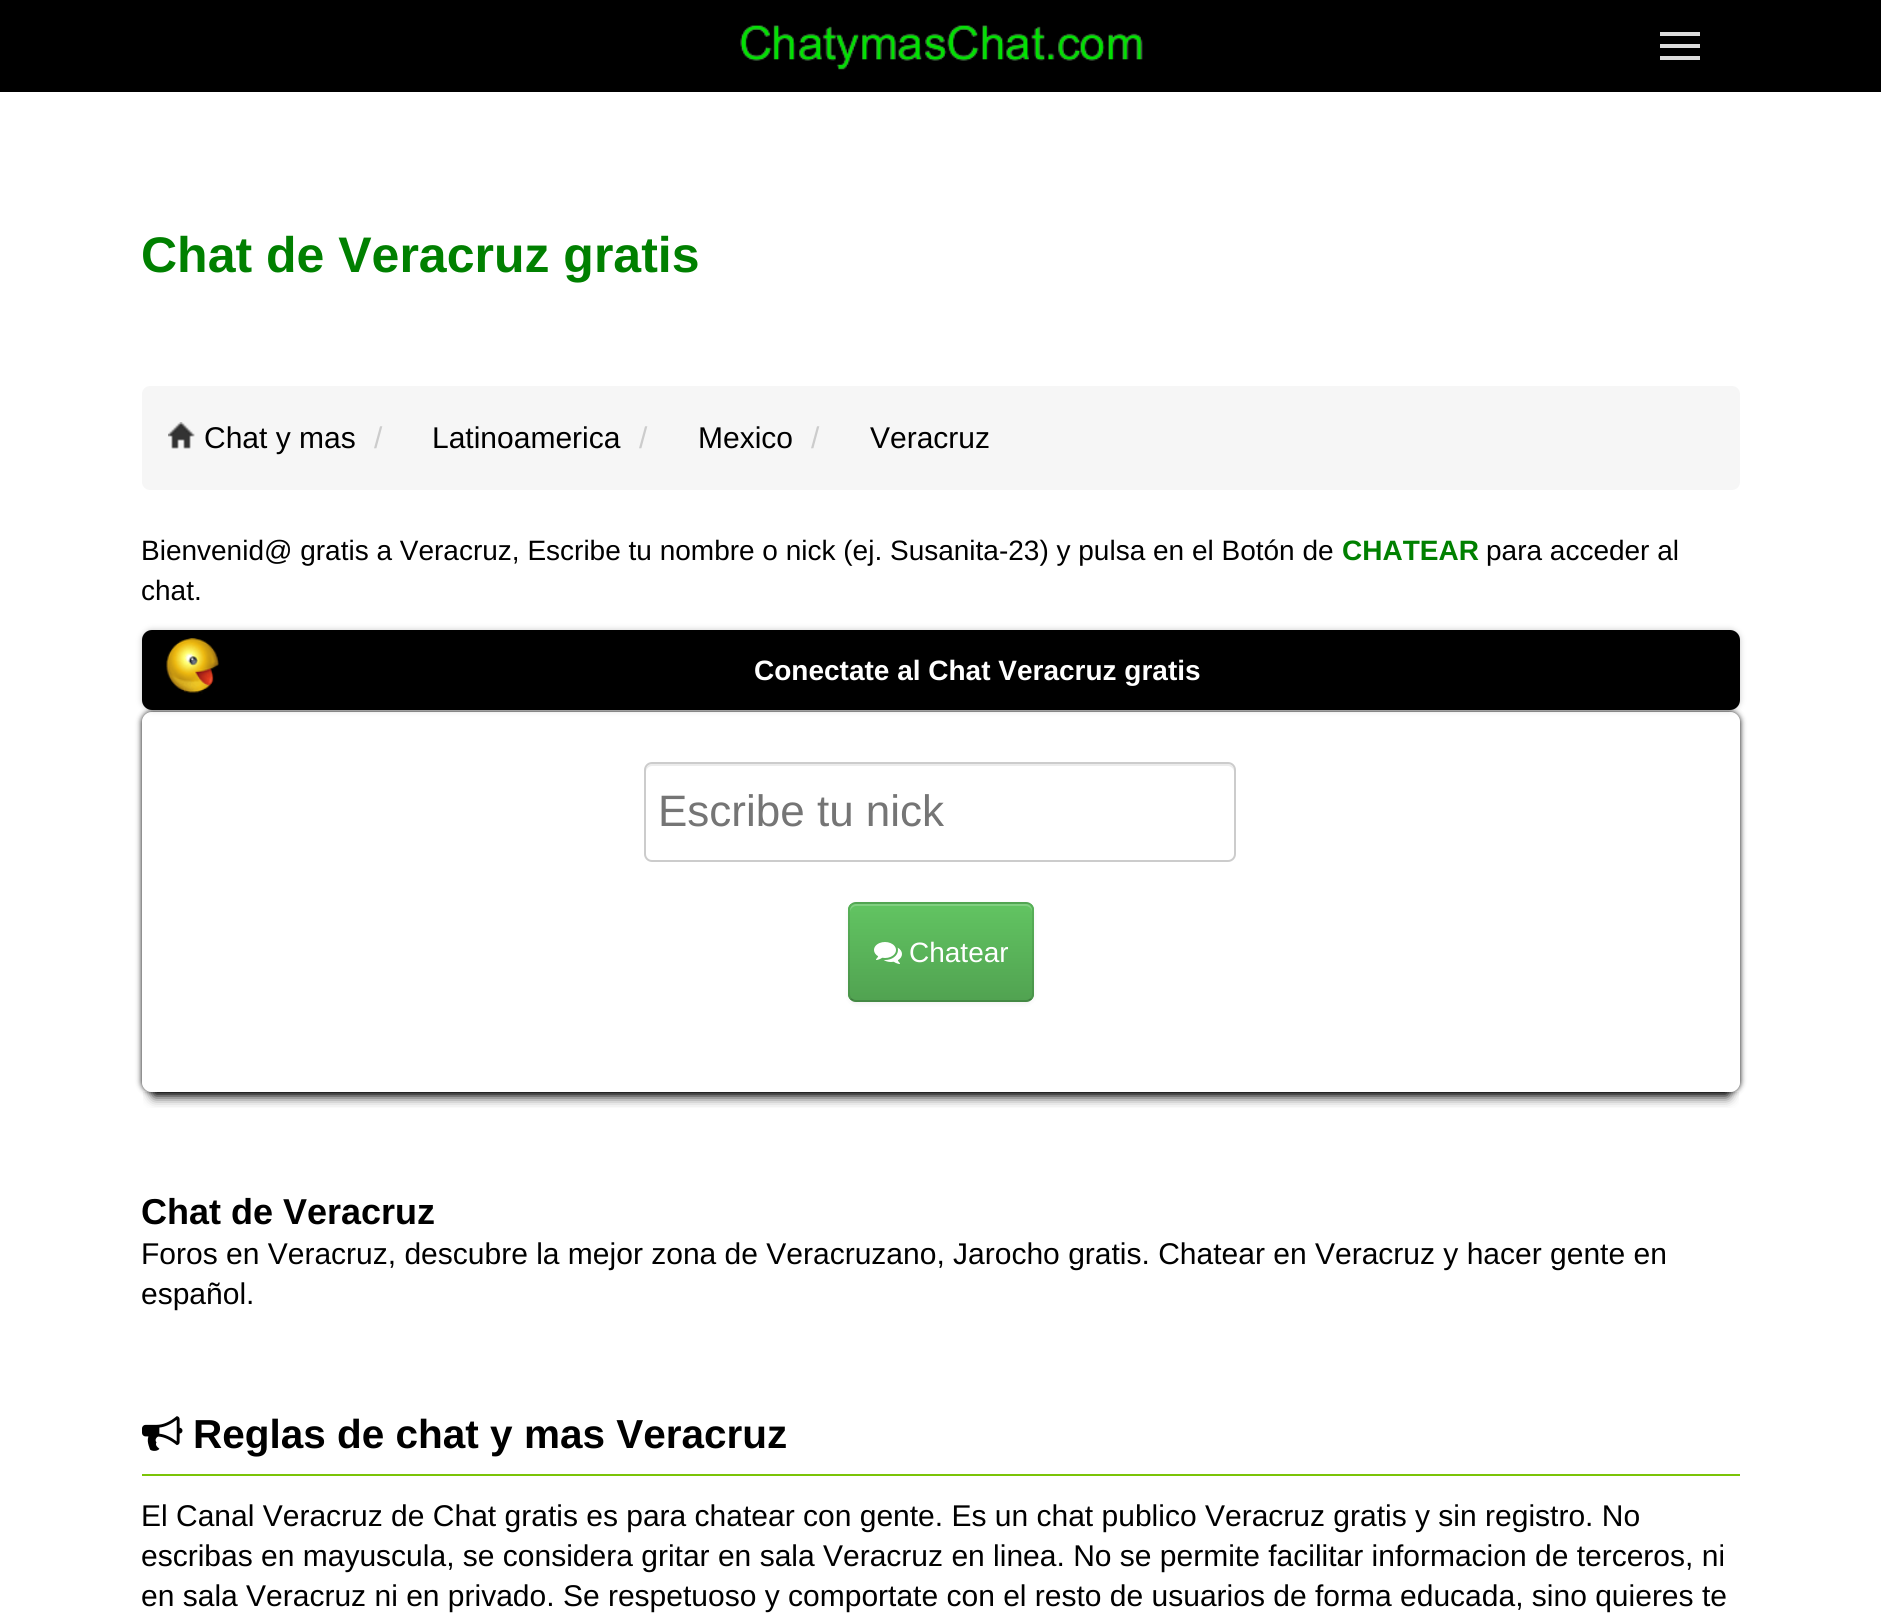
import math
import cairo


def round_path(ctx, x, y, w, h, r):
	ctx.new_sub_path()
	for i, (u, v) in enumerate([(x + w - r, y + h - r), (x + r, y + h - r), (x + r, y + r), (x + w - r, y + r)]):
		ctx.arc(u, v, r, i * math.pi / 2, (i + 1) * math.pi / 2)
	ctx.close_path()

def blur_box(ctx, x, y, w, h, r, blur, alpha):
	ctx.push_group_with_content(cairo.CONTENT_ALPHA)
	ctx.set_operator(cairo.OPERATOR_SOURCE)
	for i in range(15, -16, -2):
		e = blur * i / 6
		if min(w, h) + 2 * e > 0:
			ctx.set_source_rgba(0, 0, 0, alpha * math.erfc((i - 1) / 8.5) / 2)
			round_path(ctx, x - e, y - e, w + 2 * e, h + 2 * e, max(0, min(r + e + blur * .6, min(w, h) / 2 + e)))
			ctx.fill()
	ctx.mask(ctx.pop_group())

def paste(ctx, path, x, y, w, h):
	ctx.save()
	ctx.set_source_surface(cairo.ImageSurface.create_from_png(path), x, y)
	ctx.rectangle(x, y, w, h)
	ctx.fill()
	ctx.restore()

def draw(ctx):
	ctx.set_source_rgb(1, 1, 1)
	ctx.paint()
	ctx.set_source_rgb(0, 0, 0)
	ctx.rectangle(0, 0, 1881, 92)
	ctx.fill()
	paste(ctx, 'media/1.png', 740, 25, 403, 45)
	ctx.set_source_rgb(0.867, 0.867, 0.867)
	ctx.rectangle(1660, 32, 40, 4)
	ctx.rectangle(1660, 44, 40, 4)
	ctx.rectangle(1660, 56, 40, 4)
	ctx.fill()
	ctx.select_font_face('Liberation Sans', cairo.FONT_SLANT_NORMAL, cairo.FONT_WEIGHT_BOLD)
	ctx.set_font_size(50)
	ctx.set_source_rgb(0, 0.502, 0)
	ctx.move_to(141, 272)
	ctx.show_text('Chat de Veracruz gratis')
	ctx.set_source_rgb(0.961, 0.961, 0.961)
	round_path(ctx, 142, 386, 1598, 104, 8)
	ctx.fill()
	paste(ctx, 'media/2.png', 168, 422, 27, 27)
	ctx.select_font_face('Liberation Sans')
	ctx.set_font_size(30)
	ctx.set_source_rgb(0, 0, 0)
	ctx.move_to(204, 448)
	ctx.show_text('Chat y mas')
	ctx.set_source_rgb(0.8, 0.8, 0.8)
	ctx.move_to(374, 448)
	ctx.show_text('/')
	ctx.set_source_rgb(0, 0, 0)
	ctx.move_to(432, 448)
	ctx.show_text('Latinoamerica')
	ctx.set_source_rgb(0.8, 0.8, 0.8)
	ctx.move_to(639, 448)
	ctx.show_text('/')
	ctx.set_source_rgb(0, 0, 0)
	ctx.move_to(698, 448)
	ctx.show_text('Mexico')
	ctx.set_source_rgb(0.8, 0.8, 0.8)
	ctx.move_to(811, 448)
	ctx.show_text('/')
	ctx.set_source_rgb(0, 0, 0)
	ctx.move_to(870, 448)
	ctx.show_text('Veracruz')
	ctx.set_font_size(28)
	ctx.move_to(141, 560)
	ctx.show_text('Bienvenid@ gratis a Veracruz, Escribe tu nombre o nick (ej. Susanita-23) y pulsa en el Botón de')
	ctx.select_font_face('Liberation Sans', cairo.FONT_SLANT_NORMAL, cairo.FONT_WEIGHT_BOLD)
	ctx.set_source_rgb(0, 0.502, 0)
	ctx.move_to(1342, 560)
	ctx.show_text('CHATEAR')
	ctx.select_font_face('Liberation Sans')
	ctx.set_source_rgb(0, 0, 0)
	ctx.move_to(1486, 560)
	ctx.show_text('para acceder al')
	ctx.move_to(141, 600)
	ctx.show_text('chat.')
	ctx.save()
	ctx.rectangle(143, 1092, 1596, 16)
	ctx.clip()
	ctx.set_source_rgb(0, 0, 0)
	blur_box(ctx, 154, 658, 1574, 438, 0, 6, 1)
	ctx.restore()
	ctx.set_source_rgb(0.788, 0.788, 0.788)
	blur_box(ctx, 142, 630, 1598, 80, 10, 3, 1)
	ctx.set_source_rgb(0, 0, 0)
	round_path(ctx, 142, 630, 1598, 80, 10)
	ctx.fill()
	paste(ctx, 'media/3.png', 166, 638, 53, 56)
	ctx.select_font_face('Liberation Sans', cairo.FONT_SLANT_NORMAL, cairo.FONT_WEIGHT_BOLD)
	ctx.set_source_rgb(1, 1, 1)
	ctx.move_to(754, 680)
	ctx.show_text('Conectate al Chat Veracruz gratis')
	ctx.save()
	ctx.set_fill_rule(cairo.FILL_RULE_EVEN_ODD)
	ctx.new_path()
	ctx.move_to(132, 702)
	ctx.line_to(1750, 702)
	ctx.line_to(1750, 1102)
	ctx.line_to(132, 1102)
	ctx.close_path()
	ctx.move_to(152, 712)
	ctx.line_to(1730, 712)
	ctx.curve_to(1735.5, 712, 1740, 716.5, 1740, 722)
	ctx.line_to(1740, 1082)
	ctx.curve_to(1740, 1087.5, 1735.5, 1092, 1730, 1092)
	ctx.line_to(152, 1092)
	ctx.curve_to(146.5, 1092, 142, 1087.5, 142, 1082)
	ctx.line_to(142, 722)
	ctx.curve_to(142, 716.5, 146.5, 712, 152, 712)
	ctx.close_path()
	ctx.clip()
	ctx.set_source_rgb(0, 0, 0)
	blur_box(ctx, 142, 712, 1598, 380, 10, 3, 1)
	ctx.restore()
	ctx.set_source_rgb(0.925, 0.925, 0.925)
	ctx.new_path()
	ctx.move_to(652, 766)
	ctx.line_to(1228, 766)
	ctx.curve_to(1231, 766, 1234, 769, 1234, 772)
	ctx.line_to(1234, 770)
	ctx.curve_to(1234, 767, 1231, 764, 1228, 764)
	ctx.line_to(652, 764)
	ctx.curve_to(649, 764, 646, 767, 646, 770)
	ctx.line_to(646, 772)
	ctx.curve_to(646, 769, 649, 766, 652, 766)
	ctx.close_path()
	ctx.fill()
	round_path(ctx, 645, 763, 590, 98, 7)
	ctx.set_source_rgb(0.8, 0.8, 0.8)
	ctx.stroke()
	ctx.select_font_face('Liberation Sans')
	ctx.set_font_size(44)
	ctx.set_source_rgb(0.459, 0.459, 0.459)
	ctx.move_to(658, 826)
	ctx.show_text('Escribe tu nick')
	ctx.set_source_rgb(0, 0, 0)
	blur_box(ctx, 848, 904, 186, 100, 8, 2, 0.05)
	ctx.set_source_rgb(0.357, 0.718, 0.357)
	round_path(ctx, 848, 902, 186, 100, 8)
	ctx.fill()
	ctx.save()
	round_path(ctx, 848, 902, 186, 100, 8)
	ctx.clip()
	gradient = cairo.LinearGradient(941, 904, 941, 1000)
	gradient.add_color_stop_rgba(0, 0.384, 0.769, 0.384, 1)
	gradient.add_color_stop_rgba(1, 0.318, 0.639, 0.318, 1)
	ctx.set_source(gradient)
	ctx.rectangle(848, 904, 186, 96)
	ctx.fill()
	ctx.restore()
	ctx.set_source_rgb(0.506, 0.812, 0.506)
	ctx.new_path()
	ctx.move_to(856, 906)
	ctx.line_to(1026, 906)
	ctx.curve_to(1029, 906, 1032, 909, 1032, 912)
	ctx.line_to(1032, 910)
	ctx.curve_to(1032, 907, 1029, 904, 1026, 904)
	ctx.line_to(856, 904)
	ctx.curve_to(853, 904, 850, 907, 850, 910)
	ctx.line_to(850, 912)
	ctx.curve_to(850, 909, 853, 906, 856, 906)
	ctx.close_path()
	ctx.fill()
	ctx.new_path()
	ctx.move_to(1031, 999)
	ctx.curve_to(1029.5, 1000.5, 1028, 1001, 1026, 1001)
	ctx.line_to(856, 1001)
	ctx.curve_to(854, 1001, 852.5, 1000.5, 851, 999)
	ctx.set_source_rgba(0, 0, 0, 0.25)
	ctx.stroke()
	ctx.new_path()
	ctx.move_to(851, 999)
	ctx.curve_to(849.5, 997.5, 849, 996, 849, 994)
	ctx.line_to(849, 910)
	ctx.curve_to(849, 908, 849.5, 906.5, 851, 905)
	ctx.curve_to(852.5, 903.5, 854, 903, 856, 903)
	ctx.line_to(1026, 903)
	ctx.curve_to(1028, 903, 1029.5, 903.5, 1031, 905)
	ctx.curve_to(1032.5, 906.5, 1033, 908, 1033, 910)
	ctx.line_to(1033, 994)
	ctx.curve_to(1033, 996, 1032.5, 997.5, 1031, 999)
	ctx.set_source_rgba(0, 0, 0, 0.1)
	ctx.stroke()
	paste(ctx, 'media/4.png', 874, 942, 28, 22)
	ctx.set_font_size(28)
	ctx.set_source_rgb(1, 1, 1)
	ctx.move_to(909, 962)
	ctx.show_text('Chatear')
	ctx.select_font_face('Liberation Sans', cairo.FONT_SLANT_NORMAL, cairo.FONT_WEIGHT_BOLD)
	ctx.set_font_size(36)
	ctx.set_source_rgb(0, 0, 0)
	ctx.move_to(141, 1224)
	ctx.show_text('Chat de Veracruz')
	ctx.select_font_face('Liberation Sans')
	ctx.set_font_size(30)
	ctx.move_to(141, 1264)
	ctx.show_text('Foros en Veracruz, descubre la mejor zona de Veracruzano, Jarocho gratis. Chatear en Veracruz y hacer gente en')
	ctx.move_to(141, 1304)
	ctx.show_text('español.')
	ctx.set_source_rgb(0.482, 0.769, 0.035)
	ctx.rectangle(142, 1474, 1598, 2)
	ctx.fill()
	paste(ctx, 'media/5.png', 142, 1416, 41, 35)
	ctx.select_font_face('Liberation Sans', cairo.FONT_SLANT_NORMAL, cairo.FONT_WEIGHT_BOLD)
	ctx.set_font_size(40.5)
	ctx.set_source_rgb(0, 0, 0)
	ctx.move_to(193, 1448)
	ctx.show_text('Reglas de chat y mas Veracruz')
	ctx.select_font_face('Liberation Sans')
	ctx.set_font_size(30)
	for x, y, s in [
		(141, 1526, 'El Canal Veracruz de Chat gratis es para chatear con gente. Es un chat publico Veracruz gratis y sin registro. No'),
		(141, 1566, 'escribas en mayuscula, se considera gritar en sala Veracruz en linea. No se permite facilitar informacion de terceros, ni'),
		(141, 1606, 'en sala Veracruz ni en privado. Se respetuoso y comportate con el resto de usuarios de forma educada, sino quieres te'),
	]:
		ctx.move_to(x, y)
		ctx.show_text(s)


surface = cairo.ImageSurface(cairo.FORMAT_RGB24, 1881, 1619)
ctx = cairo.Context(surface)
options = cairo.FontOptions()
options.set_hint_metrics(cairo.HINT_METRICS_OFF)
options.set_hint_style(cairo.HINT_STYLE_NONE)
ctx.set_font_options(options)
ctx.set_miter_limit(4)
draw(ctx)
surface.write_to_png('image.png')
